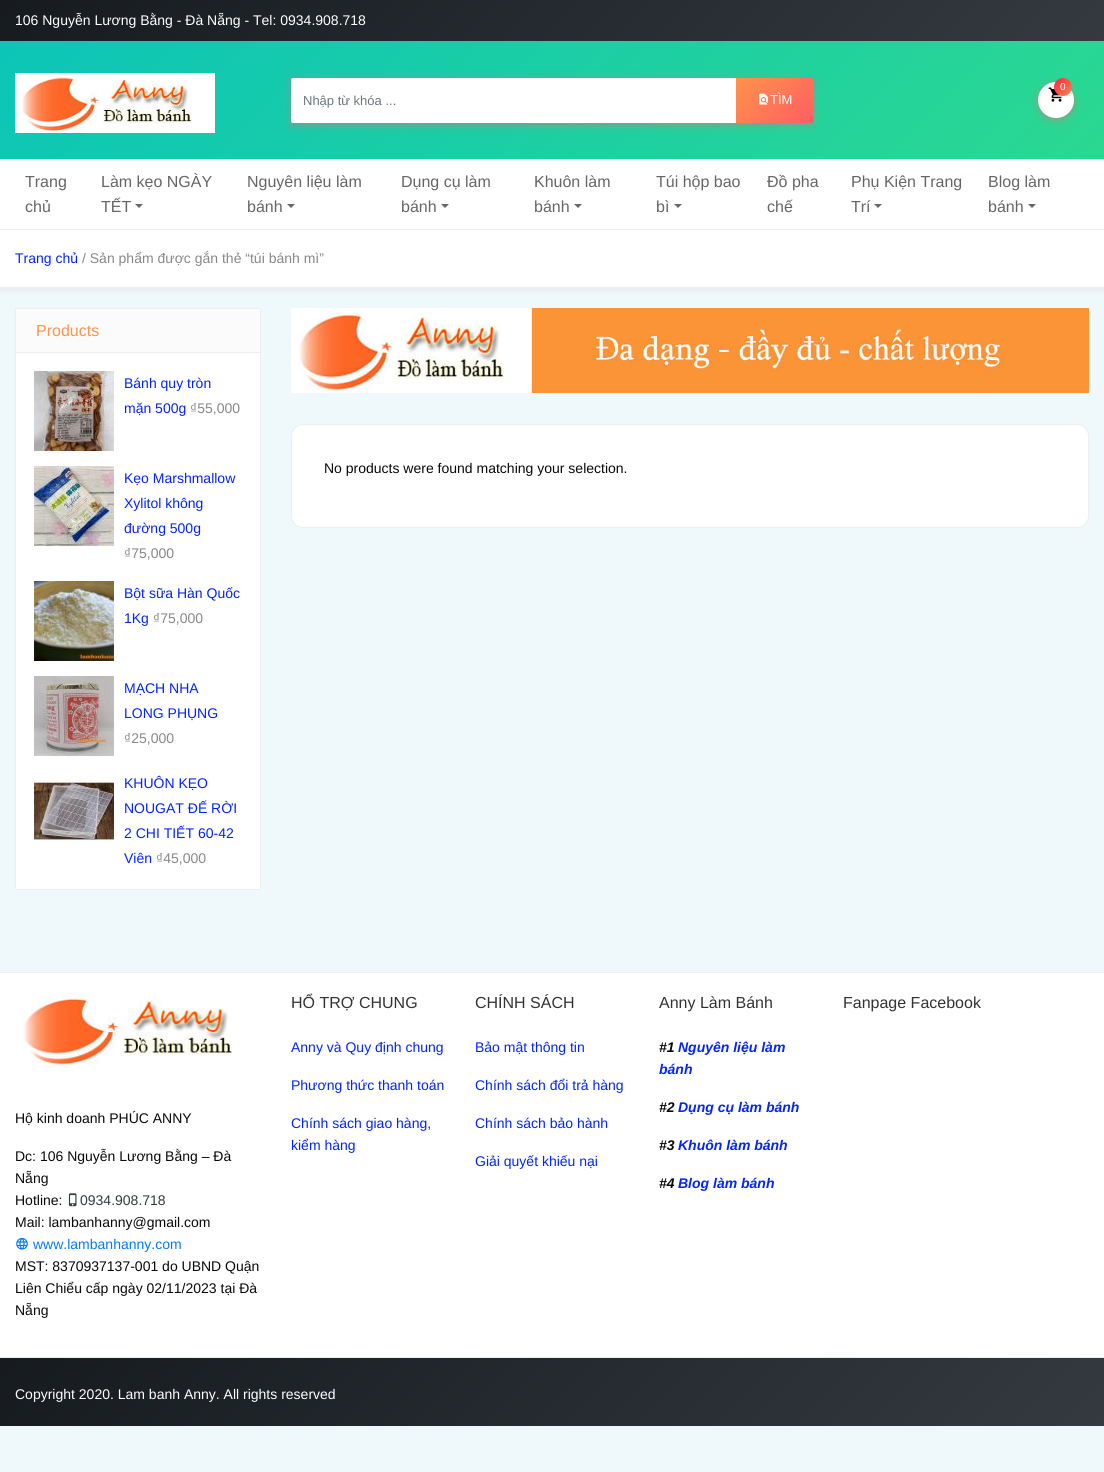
import math
import cairo


def round_path(ctx, x, y, w, h, r):
	ctx.new_sub_path()
	for i, (u, v) in enumerate([(x + w - r, y + h - r), (x + r, y + h - r), (x + r, y + r), (x + w - r, y + r)]):
		ctx.arc(u, v, r, i * math.pi / 2, (i + 1) * math.pi / 2)
	ctx.close_path()

def blur_box(ctx, x, y, w, h, r, blur, alpha):
	ctx.push_group_with_content(cairo.CONTENT_ALPHA)
	ctx.set_operator(cairo.OPERATOR_SOURCE)
	for i in range(15, -16, -2):
		e = blur * i / 6
		if min(w, h) + 2 * e > 0:
			ctx.set_source_rgba(0, 0, 0, alpha * math.erfc((i - 1) / 8.5) / 2)
			round_path(ctx, x - e, y - e, w + 2 * e, h + 2 * e, max(0, min(r + e + blur * .6, min(w, h) / 2 + e)))
			ctx.fill()
	ctx.mask(ctx.pop_group())

def paste(ctx, path, x, y, w, h):
	ctx.save()
	ctx.set_source_surface(cairo.ImageSurface.create_from_png(path), x, y)
	ctx.rectangle(x, y, w, h)
	ctx.fill()
	ctx.restore()

def draw(ctx):
	ctx.set_source_rgb(0.937, 0.969, 0.98)
	ctx.paint()
	gradient = cairo.LinearGradient(266, -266, 838, 307)
	gradient.add_color_stop_rgba(0.01, 0.09, 0.106, 0.125, 1)
	gradient.add_color_stop_rgba(1, 0.204, 0.227, 0.251, 1)
	ctx.set_source(gradient)
	ctx.rectangle(0, 0, 1104, 41)
	ctx.fill()
	ctx.select_font_face('Liberation Sans')
	ctx.set_font_size(14)
	ctx.set_source_rgb(1, 1, 1)
	ctx.move_to(15, 25)
	ctx.show_text('106 Nguyễn Lương Bằng - Đà Nẵng - Tel: 0934.908.718')
	gradient = cairo.LinearGradient(246, -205, 858, 406)
	gradient.add_color_stop_rgba(0, 0.047, 0.773, 0.718, 1)
	gradient.add_color_stop_rgba(1, 0.169, 0.847, 0.569, 1)
	ctx.set_source(gradient)
	ctx.rectangle(0, 41, 1104, 118)
	ctx.fill()
	paste(ctx, 'media/1.png', 15, 73, 200, 60)
	ctx.set_source_rgb(1, 0.38, 0.384)
	blur_box(ctx, 1038, 84, 36, 36, 18, 4, 0.46)
	ctx.set_source_rgb(1, 1, 1)
	ctx.arc(1056, 100, 18, 0, 2 * math.pi)
	ctx.fill()
	paste(ctx, 'media/2.png', 1048, 87, 14, 15)
	gradient = cairo.LinearGradient(1054, 78, 1072, 96)
	gradient.add_color_stop_rgba(0, 1, 0.145, 0.227, 1)
	gradient.add_color_stop_rgba(1, 1, 0.518, 0.325, 1)
	ctx.set_source(gradient)
	ctx.arc(1063, 87, 9, 0, 2 * math.pi)
	ctx.fill()
	ctx.set_font_size(10)
	ctx.set_source_rgb(1, 1, 1)
	ctx.move_to(1060, 90)
	ctx.show_text('0')
	ctx.set_source_rgb(1, 0.38, 0.384)
	blur_box(ctx, 291, 80, 522, 45, 0, 4, 0.46)
	ctx.set_source_rgb(1, 1, 1)
	ctx.new_path()
	ctx.move_to(293, 78)
	ctx.line_to(736, 78)
	ctx.line_to(736, 123)
	ctx.line_to(293, 123)
	ctx.curve_to(292, 123, 291, 122, 291, 121)
	ctx.line_to(291, 80)
	ctx.curve_to(291, 79, 292, 78, 293, 78)
	ctx.close_path()
	ctx.fill()
	ctx.set_font_size(13)
	ctx.set_source_rgb(0.424, 0.459, 0.49)
	ctx.move_to(303, 105)
	ctx.show_text('Nhập từ khóa ...')
	gradient = cairo.LinearGradient(744, 70, 805, 131)
	gradient.add_color_stop_rgba(0, 1, 0.576, 0.294, 1)
	gradient.add_color_stop_rgba(1, 1, 0.369, 0.384, 1)
	ctx.set_source(gradient)
	ctx.new_path()
	ctx.move_to(736, 78)
	ctx.line_to(811, 78)
	ctx.curve_to(812, 78, 813, 79, 813, 80)
	ctx.line_to(813, 121)
	ctx.curve_to(813, 122, 812, 123, 811, 123)
	ctx.line_to(736, 123)
	ctx.close_path()
	ctx.fill()
	paste(ctx, 'media/3.png', 759, 93, 9, 12)
	ctx.set_source_rgb(1, 1, 1)
	ctx.move_to(770, 104)
	ctx.show_text('TÌM')
	ctx.set_source_rgb(0, 0, 0)
	blur_box(ctx, 0, 231, 1104, 59, 0, 4, 0.06)
	ctx.set_source_rgb(1, 1, 1)
	ctx.rectangle(0, 159, 1104, 70)
	ctx.fill()
	ctx.set_font_size(16)
	ctx.set_source_rgb(0.4, 0.4, 0.4)
	for x, y, s in [
		(25, 187, 'Trang'),
		(25, 212, 'chủ'),
		(101, 187, 'Làm kẹo NGÀY'),
		(101, 212, 'TẾT'),
	]:
		ctx.move_to(x, y)
		ctx.show_text(s)
	ctx.new_path()
	ctx.move_to(135, 204)
	ctx.line_to(143, 204)
	ctx.line_to(139, 208)
	ctx.close_path()
	ctx.fill()
	ctx.move_to(247, 187)
	ctx.show_text('Nguyên liệu làm')
	ctx.move_to(247, 212)
	ctx.show_text('bánh')
	ctx.new_path()
	ctx.move_to(287, 204)
	ctx.line_to(295, 204)
	ctx.line_to(291, 208)
	ctx.close_path()
	ctx.fill()
	ctx.move_to(401, 187)
	ctx.show_text('Dụng cụ làm')
	ctx.move_to(401, 212)
	ctx.show_text('bánh')
	ctx.new_path()
	ctx.move_to(441, 204)
	ctx.line_to(449, 204)
	ctx.line_to(445, 208)
	ctx.close_path()
	ctx.fill()
	ctx.move_to(534, 187)
	ctx.show_text('Khuôn làm')
	ctx.move_to(534, 212)
	ctx.show_text('bánh')
	ctx.new_path()
	ctx.move_to(574, 204)
	ctx.line_to(582, 204)
	ctx.line_to(578, 208)
	ctx.close_path()
	ctx.fill()
	ctx.move_to(656, 187)
	ctx.show_text('Túi hộp bao')
	ctx.move_to(656, 212)
	ctx.show_text('bì')
	ctx.new_path()
	ctx.move_to(674, 204)
	ctx.line_to(682, 204)
	ctx.line_to(678, 208)
	ctx.close_path()
	ctx.fill()
	for x, y, s in [
		(767, 187, 'Đồ pha'),
		(767, 212, 'chế'),
		(851, 187, 'Phụ Kiện Trang'),
		(851, 212, 'Trí'),
	]:
		ctx.move_to(x, y)
		ctx.show_text(s)
	ctx.new_path()
	ctx.move_to(874, 204)
	ctx.line_to(882, 204)
	ctx.line_to(878, 208)
	ctx.close_path()
	ctx.fill()
	ctx.move_to(988, 187)
	ctx.show_text('Blog làm')
	ctx.move_to(988, 212)
	ctx.show_text('bánh')
	ctx.new_path()
	ctx.move_to(1028, 204)
	ctx.line_to(1036, 204)
	ctx.line_to(1032, 208)
	ctx.close_path()
	ctx.fill()
	ctx.set_source_rgb(1, 1, 1)
	ctx.rectangle(0, 230, 1104, 57)
	ctx.fill()
	ctx.set_source_rgb(0.925, 0.925, 0.925)
	ctx.rectangle(0, 229, 1104, 1)
	ctx.fill()
	ctx.set_source_rgb(0.933, 0.933, 0.933)
	ctx.rectangle(0, 287, 1104, 1)
	ctx.fill()
	ctx.set_font_size(14)
	ctx.set_source_rgb(0.016, 0.137, 1)
	ctx.move_to(15, 263)
	ctx.show_text('Trang chủ')
	ctx.set_source_rgb(0.533, 0.533, 0.533)
	ctx.move_to(82, 263)
	ctx.show_text('/ Sản phẩm được gắn thẻ “túi bánh mì”')
	ctx.set_source_rgb(1, 1, 1)
	round_path(ctx, 15.5, 308.5, 245, 581, 1.5)
	ctx.fill_preserve()
	ctx.set_source_rgb(0.933, 0.933, 0.933)
	ctx.set_line_width(1)
	ctx.stroke()
	ctx.set_source_rgb(0.984, 0.984, 0.984)
	ctx.rectangle(16, 309, 244, 43)
	ctx.fill()
	ctx.set_source_rgb(0.933, 0.933, 0.933)
	ctx.rectangle(16, 352, 244, 1)
	ctx.fill()
	ctx.set_font_size(16)
	ctx.set_source_rgb(1, 0.576, 0.294)
	ctx.move_to(36, 336)
	ctx.show_text('Products')
	paste(ctx, 'media/4.png', 34, 371, 80, 80)
	ctx.set_font_size(14)
	ctx.set_source_rgb(0.016, 0.137, 1)
	ctx.move_to(124, 388)
	ctx.show_text('Bánh quy tròn')
	ctx.move_to(124, 413)
	ctx.show_text('mặn 500g')
	ctx.set_source_rgb(0.533, 0.533, 0.533)
	ctx.move_to(190, 413)
	ctx.show_text('₫55,000')
	paste(ctx, 'media/5.png', 34, 466, 80, 80)
	ctx.set_source_rgb(0.016, 0.137, 1)
	for x, y, s in [
		(124, 483, 'Kẹo Marshmallow'),
		(124, 508, 'Xylitol không'),
		(124, 533, 'đường 500g'),
	]:
		ctx.move_to(x, y)
		ctx.show_text(s)
	ctx.set_source_rgb(0.533, 0.533, 0.533)
	ctx.move_to(124, 558)
	ctx.show_text('₫75,000')
	paste(ctx, 'media/6.png', 34, 581, 80, 80)
	ctx.set_source_rgb(0.016, 0.137, 1)
	ctx.move_to(124, 598)
	ctx.show_text('Bột sữa Hàn Quốc')
	ctx.move_to(124, 623)
	ctx.show_text('1Kg')
	ctx.set_source_rgb(0.533, 0.533, 0.533)
	ctx.move_to(153, 623)
	ctx.show_text('₫75,000')
	paste(ctx, 'media/7.png', 34, 676, 80, 80)
	ctx.set_source_rgb(0.016, 0.137, 1)
	ctx.move_to(124, 693)
	ctx.show_text('MẠCH NHA')
	ctx.move_to(124, 718)
	ctx.show_text('LONG PHỤNG')
	ctx.set_source_rgb(0.533, 0.533, 0.533)
	ctx.move_to(124, 743)
	ctx.show_text('₫25,000')
	paste(ctx, 'media/8.png', 34, 771, 80, 72)
	ctx.set_source_rgb(0.016, 0.137, 1)
	for x, y, s in [
		(124, 788, 'KHUÔN KẸO'),
		(124, 813, 'NOUGAT ĐẾ RỜI'),
		(124, 838, '2 CHI TIẾT 60-42'),
		(124, 863, 'Viên'),
	]:
		ctx.move_to(x, y)
		ctx.show_text(s)
	ctx.set_source_rgb(0.533, 0.533, 0.533)
	ctx.move_to(156, 863)
	ctx.show_text('₫45,000')
	paste(ctx, 'media/9.png', 291, 308, 798, 85)
	ctx.set_source_rgb(1, 1, 1)
	round_path(ctx, 291.5, 424.5, 797, 103, 11.5)
	ctx.fill_preserve()
	ctx.set_source_rgb(0.933, 0.933, 0.933)
	ctx.stroke()
	ctx.set_source_rgb(0.039, 0.039, 0.039)
	ctx.move_to(324, 473)
	ctx.show_text('No products were found matching your selection.')
	ctx.set_source_rgb(1, 1, 1)
	ctx.rectangle(0, 973, 1104, 384)
	ctx.fill()
	ctx.set_source_rgb(0.933, 0.933, 0.933)
	ctx.rectangle(0, 972, 1104, 1)
	ctx.rectangle(0, 1357, 1104, 1)
	ctx.fill()
	ctx.set_font_size(16)
	ctx.set_source_rgb(0.2, 0.2, 0.2)
	ctx.move_to(291, 1008)
	ctx.show_text('HỔ TRỢ CHUNG')
	ctx.set_font_size(14)
	ctx.set_source_rgb(0.016, 0.137, 1)
	for x, y, s in [
		(291, 1052, 'Anny và Quy định chung'),
		(291, 1090, 'Phương thức thanh toán'),
		(291, 1128, 'Chính sách giao hàng,'),
		(291, 1150, 'kiểm hàng'),
	]:
		ctx.move_to(x, y)
		ctx.show_text(s)
	ctx.set_font_size(16)
	ctx.set_source_rgb(0.2, 0.2, 0.2)
	ctx.move_to(475, 1008)
	ctx.show_text('CHÍNH SÁCH')
	ctx.set_font_size(14)
	ctx.set_source_rgb(0.016, 0.137, 1)
	for x, y, s in [
		(475, 1052, 'Bảo mật thông tin'),
		(475, 1090, 'Chính sách đổi trả hàng'),
		(475, 1128, 'Chính sách bảo hành'),
		(475, 1166, 'Giải quyết khiếu nại'),
	]:
		ctx.move_to(x, y)
		ctx.show_text(s)
	ctx.set_font_size(16)
	ctx.set_source_rgb(0.2, 0.2, 0.2)
	ctx.move_to(659, 1008)
	ctx.show_text('Anny Làm Bánh')
	ctx.select_font_face('Liberation Sans', cairo.FONT_SLANT_ITALIC, cairo.FONT_WEIGHT_BOLD)
	ctx.set_font_size(14)
	ctx.set_source_rgb(0.039, 0.039, 0.039)
	ctx.move_to(659, 1052)
	ctx.show_text('#1')
	ctx.set_source_rgb(0.016, 0.137, 1)
	ctx.move_to(678, 1052)
	ctx.show_text('Nguyên liệu làm')
	ctx.move_to(659, 1074)
	ctx.show_text('bánh')
	ctx.set_source_rgb(0.039, 0.039, 0.039)
	ctx.move_to(659, 1112)
	ctx.show_text('#2')
	ctx.set_source_rgb(0.016, 0.137, 1)
	ctx.move_to(678, 1112)
	ctx.show_text('Dụng cụ làm bánh')
	ctx.set_source_rgb(0.039, 0.039, 0.039)
	ctx.move_to(659, 1150)
	ctx.show_text('#3')
	ctx.set_source_rgb(0.016, 0.137, 1)
	ctx.move_to(678, 1150)
	ctx.show_text('Khuôn làm bánh')
	ctx.set_source_rgb(0.039, 0.039, 0.039)
	ctx.move_to(659, 1188)
	ctx.show_text('#4')
	ctx.set_source_rgb(0.016, 0.137, 1)
	ctx.move_to(678, 1188)
	ctx.show_text('Blog làm bánh')
	ctx.select_font_face('Liberation Sans')
	ctx.set_font_size(16)
	ctx.set_source_rgb(0.2, 0.2, 0.2)
	ctx.move_to(843, 1008)
	ctx.show_text('Fanpage Facebook')
	paste(ctx, 'media/10.png', 23, 993, 209, 74)
	ctx.set_font_size(14)
	ctx.set_source_rgb(0.039, 0.039, 0.039)
	for x, y, s in [
		(15, 1123, 'Hộ kinh doanh PHÚC ANNY'),
		(15, 1161, 'Dc: 106 Nguyễn Lương Bằng – Đà'),
		(15, 1183, 'Nẵng'),
		(15, 1205, 'Hotline:'),
	]:
		ctx.move_to(x, y)
		ctx.show_text(s)
	paste(ctx, 'media/11.png', 68, 1193, 9, 14)
	ctx.set_source_rgb(0.204, 0.227, 0.251)
	ctx.move_to(80, 1205)
	ctx.show_text('0934.908.718')
	ctx.set_source_rgb(0.039, 0.039, 0.039)
	ctx.move_to(15, 1227)
	ctx.show_text('Mail: lambanhanny@gmail.com')
	paste(ctx, 'media/12.png', 16, 1237, 12, 13)
	ctx.set_source_rgb(0, 0.482, 1)
	ctx.move_to(33, 1249)
	ctx.show_text('www.lambanhanny.com')
	ctx.set_source_rgb(0.039, 0.039, 0.039)
	for x, y, s in [
		(15, 1271, 'MST: 8370937137-001 do UBND Quận'),
		(15, 1293, 'Liên Chiểu cấp ngày 02/11/2023 tại Đà'),
		(15, 1315, 'Nẵng'),
	]:
		ctx.move_to(x, y)
		ctx.show_text(s)
	gradient = cairo.LinearGradient(259, 1099, 845, 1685)
	gradient.add_color_stop_rgba(0.01, 0.09, 0.106, 0.125, 1)
	gradient.add_color_stop_rgba(1, 0.204, 0.227, 0.251, 1)
	ctx.set_source(gradient)
	ctx.rectangle(0, 1358, 1104, 68)
	ctx.fill()
	ctx.set_source_rgb(1, 1, 1)
	ctx.move_to(15, 1399)
	ctx.show_text('Copyright 2020. Lam banh Anny. All rights reserved')


surface = cairo.ImageSurface(cairo.FORMAT_RGB24, 1104, 1472)
ctx = cairo.Context(surface)
options = cairo.FontOptions()
options.set_hint_metrics(cairo.HINT_METRICS_OFF)
options.set_hint_style(cairo.HINT_STYLE_NONE)
ctx.set_font_options(options)
ctx.set_miter_limit(4)
draw(ctx)
surface.write_to_png('image.png')
